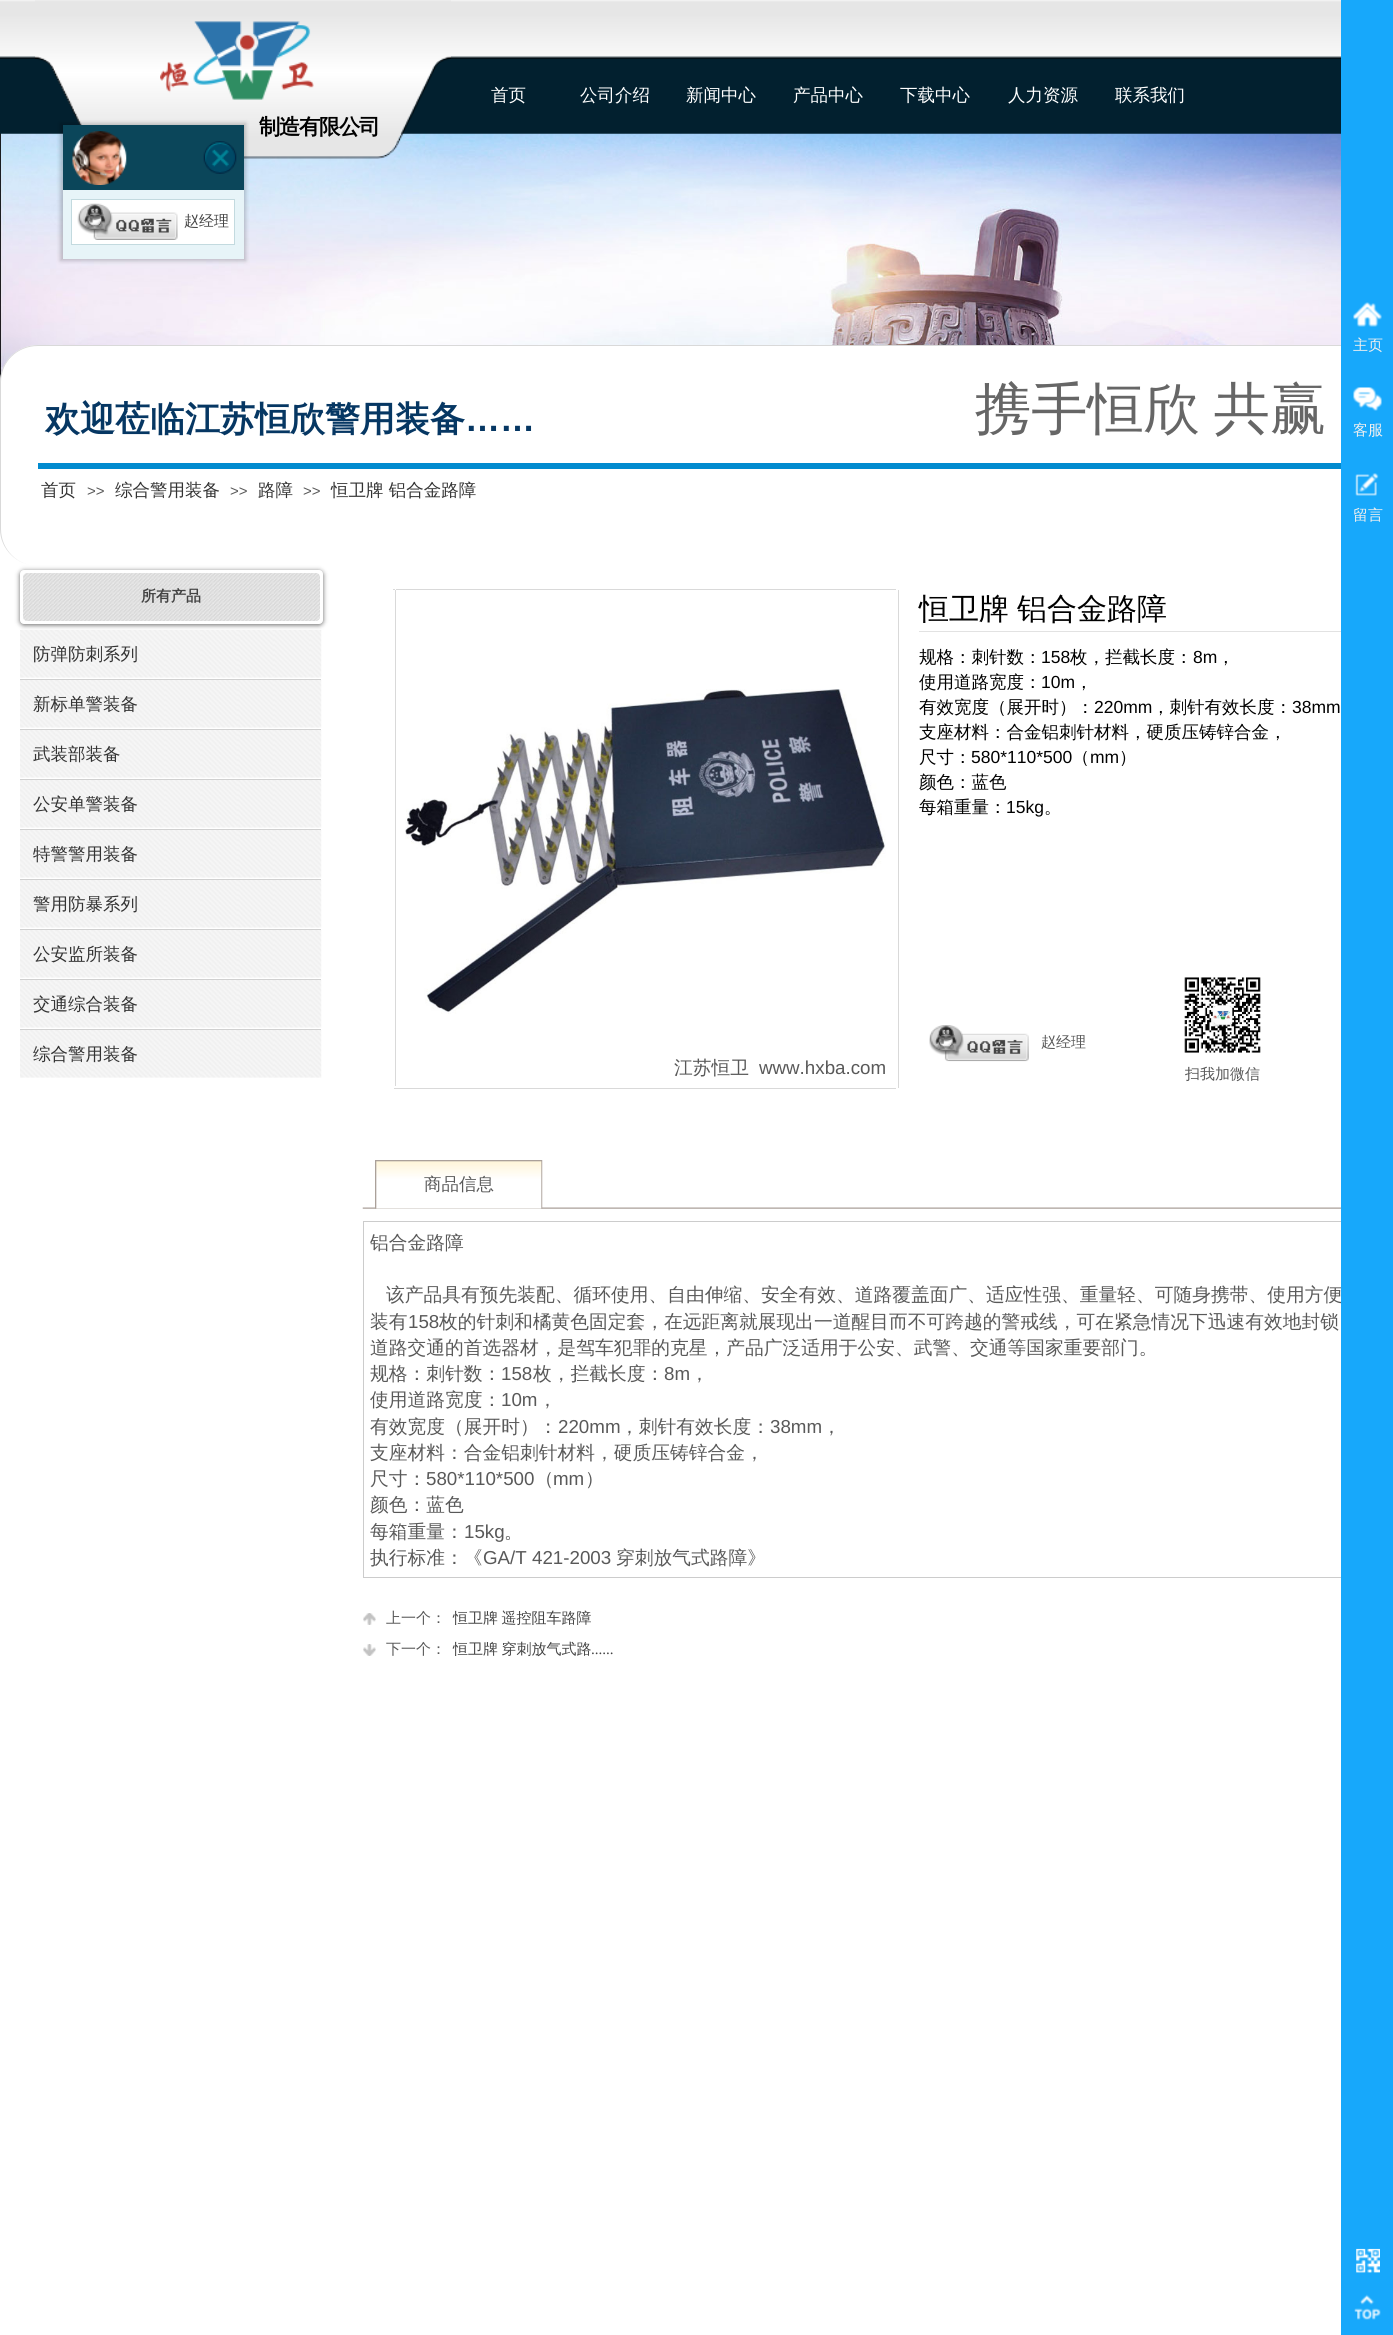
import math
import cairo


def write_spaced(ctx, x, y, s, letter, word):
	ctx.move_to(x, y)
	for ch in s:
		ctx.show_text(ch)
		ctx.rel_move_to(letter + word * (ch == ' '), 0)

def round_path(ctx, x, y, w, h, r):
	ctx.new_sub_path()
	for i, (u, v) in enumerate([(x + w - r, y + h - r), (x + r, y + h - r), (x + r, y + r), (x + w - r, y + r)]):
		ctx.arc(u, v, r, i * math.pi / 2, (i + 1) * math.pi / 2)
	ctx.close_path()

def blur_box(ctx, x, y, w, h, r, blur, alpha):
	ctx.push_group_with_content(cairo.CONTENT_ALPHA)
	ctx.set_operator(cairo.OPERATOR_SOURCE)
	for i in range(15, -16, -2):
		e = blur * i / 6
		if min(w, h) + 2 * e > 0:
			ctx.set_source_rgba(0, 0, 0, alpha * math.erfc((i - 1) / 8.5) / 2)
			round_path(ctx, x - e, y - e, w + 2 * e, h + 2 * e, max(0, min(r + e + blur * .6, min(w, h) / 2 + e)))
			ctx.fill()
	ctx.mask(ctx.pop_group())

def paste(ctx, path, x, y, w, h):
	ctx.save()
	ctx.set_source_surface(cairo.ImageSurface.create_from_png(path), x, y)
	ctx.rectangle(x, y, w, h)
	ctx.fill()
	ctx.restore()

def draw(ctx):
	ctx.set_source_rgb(1, 1, 1)
	ctx.paint()
	ctx.set_source_rgb(0.008, 0.125, 0.184)
	ctx.rectangle(0, 56, 1341, 78)
	ctx.fill()
	paste(ctx, 'media/1.png', 0, 0, 1341, 59)
	paste(ctx, 'media/4.png', 0, 133, 1341, 249)
	paste(ctx, 'media/2.png', 35, 0, 416, 159)
	paste(ctx, 'media/3.png', 160, 21, 154, 79)
	ctx.select_font_face('WenQuanYi Zen Hei Medium')
	ctx.set_font_size(17.5)
	ctx.set_source_rgb(1, 1, 1)
	for x, y, s in [
		(491, 101, '首页'),
		(580, 101, '公司介绍'),
		(686, 101, '新闻中心'),
		(793, 101, '产品中心'),
		(900, 101, '下载中心'),
		(1008, 101, '人力资源'),
		(1115, 101, '联系我们'),
	]:
		ctx.move_to(x, y)
		ctx.show_text(s)
	ctx.select_font_face('WenQuanYi Zen Hei', cairo.FONT_SLANT_NORMAL, cairo.FONT_WEIGHT_BOLD)
	ctx.set_font_size(21.25)
	ctx.set_source_rgb(0, 0, 0)
	write_spaced(ctx, 259, 134, '制造有限公司', -1.25, 0)
	ctx.set_source_rgb(1, 1, 1)
	ctx.new_path()
	ctx.move_to(38, 345)
	ctx.line_to(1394, 345)
	ctx.line_to(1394, 566)
	ctx.line_to(38, 566)
	ctx.curve_to(17, 566, 0, 549, 0, 528)
	ctx.line_to(0, 383)
	ctx.curve_to(0, 362, 17, 345, 38, 345)
	ctx.close_path()
	ctx.fill()
	ctx.set_source_rgb(0.851, 0.851, 0.851)
	ctx.set_fill_rule(cairo.FILL_RULE_EVEN_ODD)
	ctx.new_path()
	ctx.move_to(38, 345)
	ctx.line_to(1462, 345)
	ctx.curve_to(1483, 345, 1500, 362, 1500, 382)
	ctx.line_to(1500, 529)
	ctx.curve_to(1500, 549, 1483, 566, 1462, 566)
	ctx.line_to(38, 566)
	ctx.curve_to(17, 566, 0, 549, 0, 529)
	ctx.line_to(0, 382)
	ctx.curve_to(0, 362, 17, 345, 38, 345)
	ctx.close_path()
	ctx.move_to(38, 346)
	ctx.line_to(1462, 346)
	ctx.curve_to(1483, 346, 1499, 362, 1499, 382)
	ctx.line_to(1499, 529)
	ctx.curve_to(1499, 549, 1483, 566, 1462, 566)
	ctx.line_to(38, 566)
	ctx.curve_to(17, 566, 1, 549, 1, 529)
	ctx.line_to(1, 382)
	ctx.curve_to(1, 362, 17, 346, 38, 346)
	ctx.close_path()
	ctx.fill()
	ctx.set_font_size(35)
	ctx.set_source_rgb(0.027, 0.216, 0.388)
	ctx.move_to(45, 431)
	ctx.show_text('欢迎莅临江苏恒欣警用装备')
	ctx.select_font_face('Liberation Sans', cairo.FONT_SLANT_NORMAL, cairo.FONT_WEIGHT_BOLD)
	ctx.move_to(465, 431)
	ctx.show_text('……')
	ctx.select_font_face('WenQuanYi Zen Hei Medium')
	ctx.set_font_size(56.25)
	ctx.set_source_rgb(0.4, 0.4, 0.4)
	write_spaced(ctx, 975, 428, '携手恒欣 共赢', 0, -3)
	ctx.set_source_rgb(0.008, 0.545, 0.812)
	ctx.rectangle(38, 463, 1303, 6)
	ctx.fill()
	ctx.set_font_size(17.5)
	ctx.set_source_rgb(0.2, 0.2, 0.2)
	ctx.move_to(41, 496)
	ctx.show_text('首页')
	ctx.select_font_face('Liberation Sans')
	ctx.set_font_size(15)
	ctx.set_source_rgb(0.349, 0.349, 0.349)
	ctx.move_to(87, 496)
	ctx.show_text('>>')
	ctx.select_font_face('WenQuanYi Zen Hei Medium')
	ctx.set_font_size(17.5)
	ctx.set_source_rgb(0.2, 0.2, 0.2)
	ctx.move_to(115, 496)
	ctx.show_text('综合警用装备')
	ctx.select_font_face('Liberation Sans')
	ctx.set_font_size(15)
	ctx.set_source_rgb(0.349, 0.349, 0.349)
	ctx.move_to(230, 496)
	ctx.show_text('>>')
	ctx.select_font_face('WenQuanYi Zen Hei Medium')
	ctx.set_font_size(17.5)
	ctx.set_source_rgb(0.2, 0.2, 0.2)
	ctx.move_to(258, 496)
	ctx.show_text('路障')
	ctx.select_font_face('Liberation Sans')
	ctx.set_font_size(15)
	ctx.set_source_rgb(0.349, 0.349, 0.349)
	ctx.move_to(303, 496)
	ctx.show_text('>>')
	ctx.select_font_face('WenQuanYi Zen Hei Medium')
	ctx.set_font_size(17.5)
	ctx.set_source_rgb(0.2, 0.2, 0.2)
	ctx.move_to(331, 496)
	ctx.show_text('恒卫牌 铝合金路障')
	ctx.set_source_rgb(0, 0, 0)
	blur_box(ctx, 20, 571, 303, 54, 4, 2.5, 0.6)
	ctx.set_source_rgb(1, 1, 1)
	round_path(ctx, 20.5, 570.5, 302, 53, 3.5)
	ctx.fill_preserve()
	ctx.set_line_width(1)
	ctx.stroke()
	ctx.set_source_rgb(0.851, 0.851, 0.851)
	round_path(ctx, 23, 573, 297, 48, 4)
	ctx.fill()
	paste(ctx, 'media/5.png', 23, 573, 296, 46)
	paste(ctx, 'media/6.png', 23, 573, 297, 48)
	ctx.select_font_face('WenQuanYi Zen Hei', cairo.FONT_SLANT_NORMAL, cairo.FONT_WEIGHT_BOLD)
	ctx.set_font_size(15)
	ctx.set_source_rgb(0.267, 0.267, 0.267)
	ctx.move_to(141, 601)
	ctx.show_text('所有产品')
	ctx.set_source_rgb(0.851, 0.851, 0.851)
	ctx.rectangle(393, 589, 503, 1)
	ctx.rectangle(395, 589, 1, 497)
	ctx.rectangle(898, 590, 1, 498)
	ctx.fill()
	paste(ctx, 'media/7.png', 20, 630, 302, 48)
	ctx.set_source_rgb(0.816, 0.816, 0.816)
	ctx.rectangle(20, 679, 301, 1)
	ctx.fill()
	ctx.select_font_face('WenQuanYi Zen Hei Medium')
	ctx.set_font_size(17.5)
	ctx.set_source_rgb(0.2, 0.2, 0.2)
	ctx.move_to(33, 660)
	ctx.show_text('防弹防刺系列')
	paste(ctx, 'media/8.png', 20, 680, 302, 48)
	ctx.set_source_rgb(0.816, 0.816, 0.816)
	ctx.rectangle(20, 729, 301, 1)
	ctx.fill()
	ctx.set_source_rgb(0.2, 0.2, 0.2)
	ctx.move_to(33, 710)
	ctx.show_text('新标单警装备')
	paste(ctx, 'media/9.png', 20, 730, 302, 48)
	ctx.set_source_rgb(0.816, 0.816, 0.816)
	ctx.rectangle(20, 779, 301, 1)
	ctx.fill()
	ctx.set_source_rgb(0.2, 0.2, 0.2)
	ctx.move_to(33, 760)
	ctx.show_text('武装部装备')
	paste(ctx, 'media/10.png', 20, 780, 302, 48)
	ctx.set_source_rgb(0.816, 0.816, 0.816)
	ctx.rectangle(20, 829, 301, 1)
	ctx.fill()
	ctx.set_source_rgb(0.2, 0.2, 0.2)
	ctx.move_to(33, 810)
	ctx.show_text('公安单警装备')
	paste(ctx, 'media/11.png', 20, 830, 302, 48)
	ctx.set_source_rgb(0.816, 0.816, 0.816)
	ctx.rectangle(20, 879, 301, 1)
	ctx.fill()
	ctx.save()
	ctx.set_fill_rule(cairo.FILL_RULE_WINDING)
	ctx.rectangle(33, 830, 283, 49)
	ctx.clip()
	ctx.set_source_rgb(0.2, 0.2, 0.2)
	ctx.move_to(33, 860)
	ctx.show_text('特警警用装备')
	ctx.restore()
	paste(ctx, 'media/12.png', 20, 880, 302, 48)
	ctx.rectangle(20, 929, 301, 1)
	ctx.fill()
	ctx.set_source_rgb(0.2, 0.2, 0.2)
	ctx.move_to(33, 910)
	ctx.show_text('警用防暴系列')
	paste(ctx, 'media/13.png', 20, 930, 302, 48)
	ctx.set_source_rgb(0.816, 0.816, 0.816)
	ctx.rectangle(20, 979, 301, 1)
	ctx.fill()
	ctx.set_source_rgb(0.2, 0.2, 0.2)
	ctx.move_to(33, 960)
	ctx.show_text('公安监所装备')
	paste(ctx, 'media/14.png', 20, 980, 302, 48)
	ctx.set_source_rgb(0.816, 0.816, 0.816)
	ctx.rectangle(20, 1029, 301, 1)
	ctx.fill()
	ctx.set_source_rgb(0.2, 0.2, 0.2)
	ctx.move_to(33, 1010)
	ctx.show_text('交通综合装备')
	paste(ctx, 'media/12.png', 20, 1030, 302, 48)
	ctx.move_to(33, 1060)
	ctx.show_text('综合警用装备')
	paste(ctx, 'media/15.png', 405, 689, 481, 325)
	ctx.set_source_rgb(0.886, 0.886, 0.886)
	ctx.rectangle(919, 631, 422, 1)
	ctx.fill()
	ctx.set_font_size(30)
	ctx.set_source_rgb(0, 0, 0)
	write_spaced(ctx, 919, 619, '恒卫牌 铝合金路障', 0, -1)
	ctx.set_font_size(17.5)
	ctx.move_to(919, 663)
	ctx.show_text('规格：刺针数：')
	ctx.select_font_face('Liberation Sans')
	ctx.move_to(1041, 663)
	ctx.show_text('158')
	ctx.select_font_face('WenQuanYi Zen Hei Medium')
	ctx.move_to(1070, 663)
	ctx.show_text('枚，拦截长度：')
	ctx.select_font_face('Liberation Sans')
	ctx.move_to(1193, 663)
	ctx.show_text('8m')
	ctx.select_font_face('WenQuanYi Zen Hei Medium')
	ctx.move_to(1217, 663)
	ctx.show_text('，')
	ctx.move_to(919, 688)
	ctx.show_text('使用道路宽度：')
	ctx.select_font_face('Liberation Sans')
	ctx.move_to(1041, 688)
	ctx.show_text('10m')
	ctx.select_font_face('WenQuanYi Zen Hei Medium')
	ctx.move_to(1075, 688)
	ctx.show_text('，')
	ctx.move_to(919, 713)
	ctx.show_text('有效宽度（展开时）：')
	ctx.select_font_face('Liberation Sans')
	ctx.move_to(1094, 713)
	ctx.show_text('220mm')
	ctx.select_font_face('WenQuanYi Zen Hei Medium')
	ctx.move_to(1152, 713)
	ctx.show_text('，刺针有效长度：')
	ctx.select_font_face('Liberation Sans')
	ctx.move_to(1292, 713)
	ctx.show_text('38mm')
	ctx.select_font_face('WenQuanYi Zen Hei Medium')
	ctx.move_to(919, 738)
	ctx.show_text('支座材料：合金铝刺针材料，硬质压铸锌合金，')
	ctx.move_to(919, 763)
	ctx.show_text('尺寸：')
	ctx.select_font_face('Liberation Sans')
	ctx.move_to(971, 763)
	ctx.show_text('580*110*500')
	ctx.select_font_face('WenQuanYi Zen Hei Medium')
	ctx.move_to(1072, 763)
	ctx.show_text('（')
	ctx.select_font_face('Liberation Sans')
	ctx.move_to(1090, 763)
	ctx.show_text('mm')
	ctx.select_font_face('WenQuanYi Zen Hei Medium')
	for x, y, s in [
		(1119, 763, '）'),
		(919, 788, '颜色：蓝色'),
		(919, 813, '每箱重量：'),
	]:
		ctx.move_to(x, y)
		ctx.show_text(s)
	ctx.select_font_face('Liberation Sans')
	ctx.move_to(1006, 813)
	ctx.show_text('15kg')
	ctx.select_font_face('WenQuanYi Zen Hei Medium')
	ctx.move_to(1044, 813)
	ctx.show_text('。')
	paste(ctx, 'media/16.png', 362, 1207, 979, 2)
	paste(ctx, 'media/17.png', 375, 1160, 168, 49)
	ctx.set_source_rgb(0.349, 0.349, 0.349)
	ctx.move_to(424, 1190)
	ctx.show_text('商品信息')
	ctx.rectangle(363.5, 1221.5, 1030, 356)
	ctx.set_source_rgb(0.8, 0.8, 0.8)
	ctx.stroke()
	ctx.set_font_size(18.75)
	ctx.set_source_rgb(0.349, 0.349, 0.349)
	for x, y, s in [
		(370, 1249, '铝合金路障'),
		(386, 1301, '该产品具有预先装配、循环使用、自由伸缩、安全有效、道路覆盖面广、适应性强、重量轻、可随身携带、使用方便'),
		(370, 1328, '装有'),
	]:
		ctx.move_to(x, y)
		ctx.show_text(s)
	ctx.select_font_face('Liberation Sans')
	ctx.move_to(408, 1328)
	ctx.show_text('158')
	ctx.select_font_face('WenQuanYi Zen Hei Medium')
	for x, y, s in [
		(439, 1328, '枚的针刺和橘黄色固定套，在远距离就展现出一道醒目而不可跨越的警戒线，可在紧急情况下迅速有效地封锁'),
		(370, 1354, '道路交通的首选器材，是驾车犯罪的克星，产品广泛适用于公安、武警、交通等国家重要部门。'),
		(370, 1380, '规格：刺针数：'),
	]:
		ctx.move_to(x, y)
		ctx.show_text(s)
	ctx.select_font_face('Liberation Sans')
	ctx.move_to(501, 1380)
	ctx.show_text('158')
	ctx.select_font_face('WenQuanYi Zen Hei Medium')
	ctx.move_to(533, 1380)
	ctx.show_text('枚，拦截长度：')
	ctx.select_font_face('Liberation Sans')
	ctx.move_to(664, 1380)
	ctx.show_text('8m')
	ctx.select_font_face('WenQuanYi Zen Hei Medium')
	ctx.move_to(690, 1380)
	ctx.show_text('，')
	ctx.move_to(370, 1406)
	ctx.show_text('使用道路宽度：')
	ctx.select_font_face('Liberation Sans')
	ctx.move_to(501, 1406)
	ctx.show_text('10m')
	ctx.select_font_face('WenQuanYi Zen Hei Medium')
	ctx.move_to(538, 1406)
	ctx.show_text('，')
	ctx.move_to(370, 1433)
	ctx.show_text('有效宽度（展开时）：')
	ctx.select_font_face('Liberation Sans')
	ctx.move_to(558, 1433)
	ctx.show_text('220mm')
	ctx.select_font_face('WenQuanYi Zen Hei Medium')
	ctx.move_to(620, 1433)
	ctx.show_text('，刺针有效长度：')
	ctx.select_font_face('Liberation Sans')
	ctx.move_to(770, 1433)
	ctx.show_text('38mm')
	ctx.select_font_face('WenQuanYi Zen Hei Medium')
	for x, y, s in [
		(822, 1433, '，'),
		(370, 1459, '支座材料：合金铝刺针材料，硬质压铸锌合金，'),
		(370, 1485, '尺寸：'),
	]:
		ctx.move_to(x, y)
		ctx.show_text(s)
	ctx.select_font_face('Liberation Sans')
	ctx.move_to(426, 1485)
	ctx.show_text('580*110*500')
	ctx.select_font_face('WenQuanYi Zen Hei Medium')
	ctx.move_to(535, 1485)
	ctx.show_text('（')
	ctx.select_font_face('Liberation Sans')
	ctx.move_to(553, 1485)
	ctx.show_text('mm')
	ctx.select_font_face('WenQuanYi Zen Hei Medium')
	for x, y, s in [
		(585, 1485, '）'),
		(370, 1511, '颜色：蓝色'),
		(370, 1538, '每箱重量：'),
	]:
		ctx.move_to(x, y)
		ctx.show_text(s)
	ctx.select_font_face('Liberation Sans')
	ctx.move_to(464, 1538)
	ctx.show_text('15kg')
	ctx.select_font_face('WenQuanYi Zen Hei Medium')
	ctx.move_to(504, 1538)
	ctx.show_text('。')
	ctx.move_to(370, 1564)
	ctx.show_text('执行标准：《')
	ctx.select_font_face('Liberation Sans')
	ctx.move_to(483, 1564)
	ctx.show_text('GA/T 421-2003')
	ctx.select_font_face('WenQuanYi Zen Hei Medium')
	ctx.move_to(616, 1564)
	ctx.show_text('穿刺放气式路障》')
	ctx.set_source_rgb(0.761, 0.761, 0.761)
	ctx.rectangle(363, 1613, 13, 12)
	ctx.fill()
	paste(ctx, 'media/18.png', 363, 1613, 13, 12)
	ctx.set_font_size(15)
	ctx.set_source_rgb(0.349, 0.349, 0.349)
	ctx.move_to(386, 1623)
	ctx.show_text('上一个：')
	ctx.set_source_rgb(0.267, 0.267, 0.267)
	write_spaced(ctx, 453, 1623, '恒卫牌 遥控阻车路障', 0, -1)
	ctx.set_source_rgb(0.761, 0.761, 0.761)
	ctx.rectangle(363, 1644, 13, 12)
	ctx.fill()
	paste(ctx, 'media/19.png', 363, 1644, 13, 12)
	ctx.set_source_rgb(0.349, 0.349, 0.349)
	ctx.move_to(386, 1654)
	ctx.show_text('下一个：')
	ctx.set_source_rgb(0.267, 0.267, 0.267)
	write_spaced(ctx, 453, 1654, '恒卫牌 穿刺放气式路', 0, -1)
	ctx.select_font_face('Liberation Serif')
	ctx.move_to(591, 1654)
	ctx.show_text('......')
	paste(ctx, 'media/20.png', 929, 1025, 100, 37)
	ctx.select_font_face('WenQuanYi Zen Hei Medium')
	ctx.set_source_rgb(0.349, 0.349, 0.349)
	ctx.move_to(1041, 1047)
	ctx.show_text('赵经理')
	paste(ctx, 'media/21.png', 1184, 977, 77, 76)
	ctx.set_font_size(18.75)
	ctx.move_to(674, 1074)
	ctx.show_text('江苏恒卫')
	ctx.select_font_face('Liberation Sans')
	ctx.move_to(759, 1074)
	ctx.show_text('www.hxba.com')
	ctx.select_font_face('WenQuanYi Zen Hei Medium')
	ctx.set_font_size(15)
	ctx.move_to(1185, 1079)
	ctx.show_text('扫我加微信')
	ctx.set_source_rgb(0.851, 0.851, 0.851)
	ctx.rectangle(394, 1088, 502, 1)
	ctx.fill()
	ctx.set_source_rgb(0, 0, 0)
	blur_box(ctx, 60, 123, 186, 138, 0, 2, 0.2)
	ctx.set_source_rgb(0.043, 0.275, 0.353)
	ctx.rectangle(63, 125, 181, 65)
	ctx.fill()
	paste(ctx, 'media/22.png', 72, 131, 55, 54)
	paste(ctx, 'media/23.png', 203, 141, 34, 33)
	ctx.set_source_rgb(0.906, 0.957, 0.969)
	ctx.rectangle(63, 190, 181, 69)
	ctx.fill()
	ctx.set_source_rgb(1, 1, 1)
	ctx.rectangle(71.5, 199.5, 163, 45)
	ctx.fill_preserve()
	ctx.set_source_rgb(0.765, 0.855, 0.875)
	ctx.stroke()
	paste(ctx, 'media/24.png', 77, 203, 101, 37)
	ctx.set_source_rgb(0.267, 0.267, 0.267)
	ctx.move_to(184, 226)
	ctx.show_text('赵经理')
	ctx.set_source_rgb(0.09, 0.659, 0.984)
	ctx.rectangle(1341, 0, 52, 2335)
	ctx.fill()
	paste(ctx, 'media/25.png', 1353, 302, 29, 25)
	ctx.set_source_rgb(0.937, 0.937, 0.937)
	ctx.move_to(1353, 350)
	ctx.show_text('主页')
	paste(ctx, 'media/26.png', 1353, 387, 29, 24)
	ctx.move_to(1353, 435)
	ctx.show_text('客服')
	paste(ctx, 'media/27.png', 1355, 473, 24, 23)
	ctx.move_to(1353, 520)
	ctx.show_text('留言')
	paste(ctx, 'media/28.png', 1356, 2248, 24, 25)
	paste(ctx, 'media/29.png', 1354, 2294, 27, 26)


surface = cairo.ImageSurface(cairo.FORMAT_RGB24, 1393, 2335)
ctx = cairo.Context(surface)
options = cairo.FontOptions()
options.set_hint_metrics(cairo.HINT_METRICS_OFF)
options.set_hint_style(cairo.HINT_STYLE_NONE)
ctx.set_font_options(options)
ctx.set_miter_limit(4)
draw(ctx)
surface.write_to_png('image.png')
